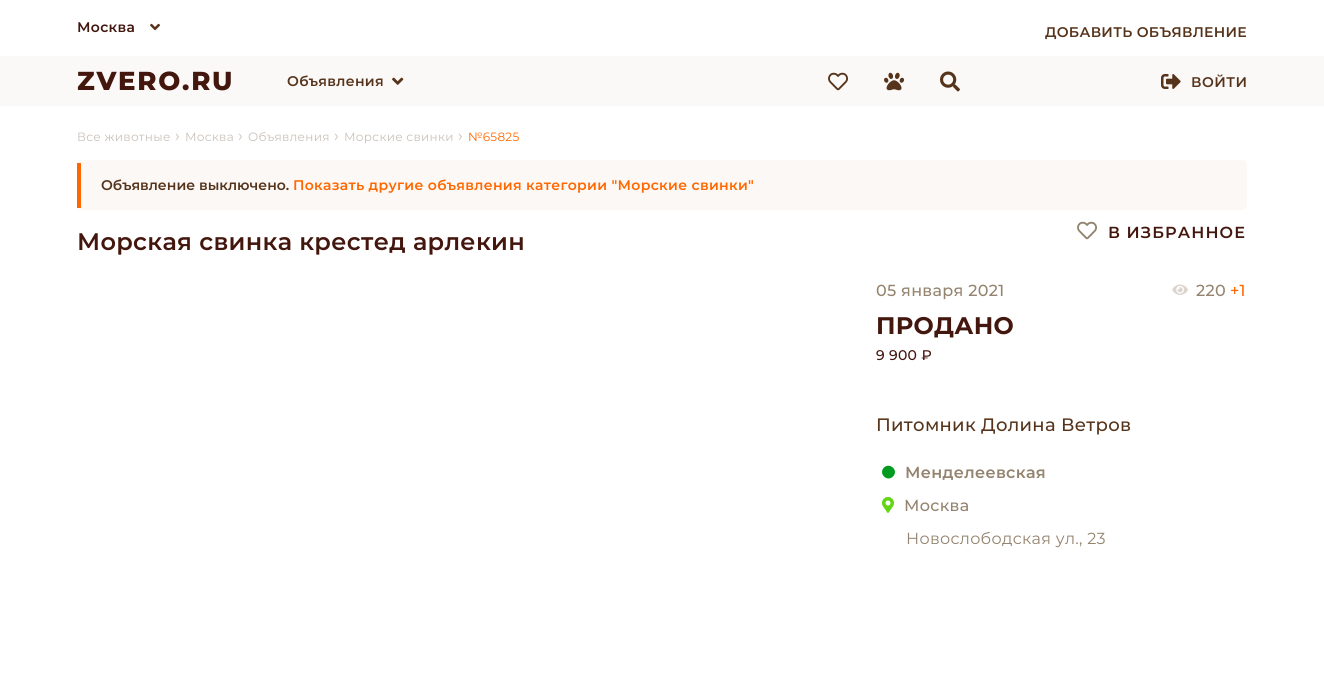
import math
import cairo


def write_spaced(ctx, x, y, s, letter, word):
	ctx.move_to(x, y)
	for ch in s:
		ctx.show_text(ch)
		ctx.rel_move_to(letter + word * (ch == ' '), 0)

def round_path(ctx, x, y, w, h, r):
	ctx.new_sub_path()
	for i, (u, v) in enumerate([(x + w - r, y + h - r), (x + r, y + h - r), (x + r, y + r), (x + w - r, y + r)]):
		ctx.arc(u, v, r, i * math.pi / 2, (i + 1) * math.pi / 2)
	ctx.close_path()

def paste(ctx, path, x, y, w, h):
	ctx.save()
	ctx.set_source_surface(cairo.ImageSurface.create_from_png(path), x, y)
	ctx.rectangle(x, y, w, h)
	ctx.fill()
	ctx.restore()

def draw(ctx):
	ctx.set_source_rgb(1, 1, 1)
	ctx.paint()
	ctx.select_font_face('Montserrat SemiBold')
	ctx.set_font_size(14)
	ctx.set_source_rgb(0.263, 0.086, 0.055)
	write_spaced(ctx, 77, 32, 'Москва', 0.3, 0)
	paste(ctx, 'media/1.png', 150, 23, 10, 8)
	ctx.set_source_rgb(0.337, 0.204, 0.106)
	write_spaced(ctx, 1045, 37, 'ДОБАВИТЬ ОБЪЯВЛЕНИЕ', 0.3, 0)
	ctx.set_source_rgb(0.984, 0.973, 0.965)
	ctx.rectangle(0, 56, 1324, 50)
	ctx.fill()
	ctx.select_font_face('Montserrat ExtraBold')
	ctx.set_font_size(26)
	ctx.set_source_rgb(0.263, 0.086, 0.055)
	write_spaced(ctx, 77, 90, 'ZVERO.RU', 1.75, 0)
	ctx.select_font_face('Montserrat SemiBold')
	ctx.set_font_size(14)
	ctx.set_source_rgb(0.337, 0.204, 0.106)
	write_spaced(ctx, 287, 86, 'Объявления', 0.3, 0)
	paste(ctx, 'media/2.png', 392, 77, 12, 8)
	paste(ctx, 'media/3.png', 828, 72, 20, 19)
	paste(ctx, 'media/4.png', 884, 72, 20, 19)
	paste(ctx, 'media/5.png', 940, 71, 20, 21)
	paste(ctx, 'media/6.png', 1161, 74, 20, 15)
	write_spaced(ctx, 1191, 87, 'ВОЙТИ', 0.5, 0)
	ctx.select_font_face('Montserrat')
	ctx.set_font_size(12)
	ctx.set_source_rgb(0.788, 0.757, 0.725)
	write_spaced(ctx, 77, 141, 'Все животные', 0.3, 0)
	ctx.set_font_size(16)
	write_spaced(ctx, 175, 141, '›', 0.3, 0)
	ctx.set_font_size(12)
	write_spaced(ctx, 185, 141, 'Москва', 0.3, 0)
	ctx.set_font_size(16)
	write_spaced(ctx, 238, 141, '›', 0.3, 0)
	ctx.set_font_size(12)
	write_spaced(ctx, 248, 141, 'Объявления', 0.3, 0)
	ctx.set_font_size(16)
	write_spaced(ctx, 334, 141, '›', 0.3, 0)
	ctx.set_font_size(12)
	write_spaced(ctx, 344, 141, 'Морские свинки', 0.3, 0)
	ctx.set_font_size(16)
	write_spaced(ctx, 458, 141, '›', 0.3, 0)
	ctx.set_font_size(12)
	ctx.set_source_rgb(1, 0.404, 0)
	write_spaced(ctx, 468, 141, '№65825', 0.3, 0)
	ctx.set_source_rgb(0.984, 0.969, 0.961)
	round_path(ctx, 77, 160, 1170, 50, 5)
	ctx.fill()
	ctx.set_source_rgb(1, 0.404, 0)
	ctx.rectangle(77, 163, 4, 45)
	ctx.fill()
	ctx.select_font_face('Montserrat SemiBold')
	ctx.set_font_size(14)
	ctx.set_source_rgb(0.337, 0.204, 0.106)
	ctx.move_to(101, 190)
	ctx.show_text('Объявление выключено.')
	ctx.set_source_rgb(1, 0.404, 0)
	write_spaced(ctx, 293, 190, 'Показать другие объявления категории "Морские свинки"', 0.3, 0)
	ctx.set_font_size(24)
	ctx.set_source_rgb(0.263, 0.086, 0.055)
	write_spaced(ctx, 77, 250, 'Морская свинка крестед арлекин', 0.3, 0)
	paste(ctx, 'media/7.png', 1077, 221, 20, 19)
	ctx.set_font_size(16)
	write_spaced(ctx, 1108, 238, 'В ИЗБРАННОЕ', 1.1, 0)
	ctx.select_font_face('Montserrat Medium')
	ctx.set_source_rgb(0.58, 0.514, 0.431)
	write_spaced(ctx, 876, 296, '05 января 2021', 0.3, 0)
	paste(ctx, 'media/8.png', 1172, 284, 16, 11)
	write_spaced(ctx, 1196, 296, '220', 0.3, 0)
	ctx.set_source_rgb(1, 0.404, 0)
	write_spaced(ctx, 1230, 296, '+1', 0.3, 0)
	ctx.select_font_face('Montserrat', cairo.FONT_SLANT_NORMAL, cairo.FONT_WEIGHT_BOLD)
	ctx.set_font_size(24)
	ctx.set_source_rgb(0.263, 0.086, 0.055)
	write_spaced(ctx, 876, 334, 'ПРОДАНО', 0.3, 0)
	ctx.select_font_face('Montserrat Medium')
	ctx.set_font_size(14)
	write_spaced(ctx, 876, 360, '9 900 ₽', 0.3, 0)
	ctx.set_font_size(18)
	ctx.set_source_rgb(0.337, 0.204, 0.106)
	write_spaced(ctx, 876, 431, 'Питомник Долина Ветров', 0.3, 0)
	ctx.set_source_rgb(0.008, 0.608, 0.129)
	ctx.new_path()
	ctx.move_to(884, 467.5)
	ctx.curve_to(890, 462, 899, 470.5, 893, 476.5)
	ctx.curve_to(887, 482.5, 878, 473.5, 884, 467.5)
	ctx.close_path()
	ctx.fill()
	ctx.select_font_face('Montserrat SemiBold')
	ctx.set_font_size(16)
	ctx.set_source_rgb(0.58, 0.514, 0.431)
	write_spaced(ctx, 905, 478, 'Менделеевская', 0.3, 0)
	paste(ctx, 'media/9.png', 882, 497, 12, 16)
	ctx.select_font_face('Montserrat Medium')
	write_spaced(ctx, 904, 511, 'Москва', 0.3, 0)
	ctx.select_font_face('Montserrat')
	write_spaced(ctx, 906, 544, 'Новослободская ул., 23', 0.3, 0)


surface = cairo.ImageSurface(cairo.FORMAT_RGB24, 1324, 699)
ctx = cairo.Context(surface)
options = cairo.FontOptions()
options.set_hint_metrics(cairo.HINT_METRICS_OFF)
options.set_hint_style(cairo.HINT_STYLE_NONE)
ctx.set_font_options(options)
ctx.set_miter_limit(4)
draw(ctx)
surface.write_to_png('image.png')
